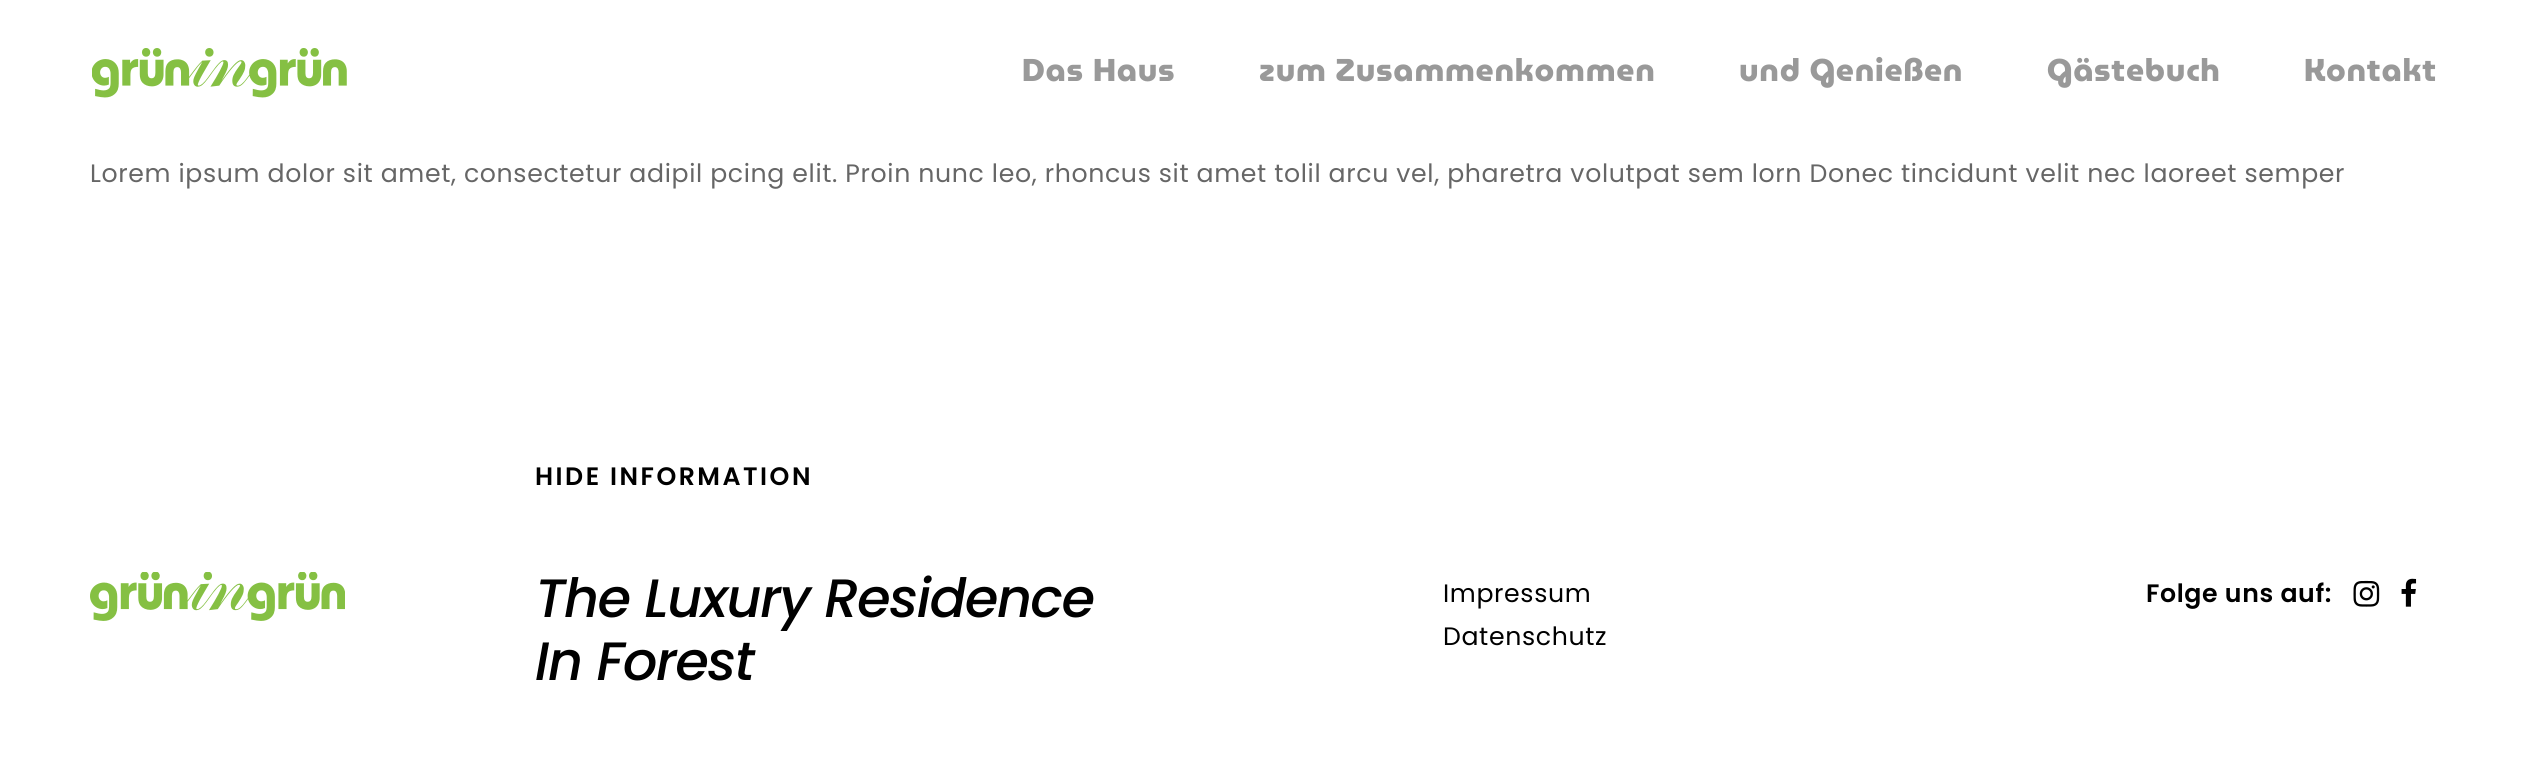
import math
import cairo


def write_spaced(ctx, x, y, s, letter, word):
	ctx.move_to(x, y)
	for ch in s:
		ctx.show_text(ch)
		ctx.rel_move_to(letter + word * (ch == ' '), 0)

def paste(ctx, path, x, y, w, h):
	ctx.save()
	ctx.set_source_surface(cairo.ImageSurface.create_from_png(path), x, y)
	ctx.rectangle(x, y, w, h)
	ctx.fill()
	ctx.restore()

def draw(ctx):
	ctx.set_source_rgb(1, 1, 1)
	ctx.paint()
	paste(ctx, 'media/1.png', 92, 48, 255, 50)
	ctx.select_font_face('MuseoModerno Thin')
	ctx.set_font_size(31.5)
	ctx.set_source_rgb(0.6, 0.6, 0.6)
	for x, y, s in [
		(1022, 81, 'Das Haus'),
		(1259, 81, 'zum Zusammenkommen'),
		(1739, 81, 'und Genießen'),
		(2047, 81, 'Gästebuch'),
		(2304, 81, 'Kontakt'),
	]:
		write_spaced(ctx, x, y, s, 0.75, 0)
	ctx.select_font_face('Poppins')
	ctx.set_font_size(25.2)
	ctx.set_source_rgb(0.4, 0.4, 0.4)
	write_spaced(ctx, 90, 182, 'Lorem ipsum dolor sit amet, consectetur adipil pcing elit. Proin nunc leo, rhoncus sit amet tolil arcu vel, pharetra volutpat sem lorn Donec tincidunt velit nec laoreet semper', 0.63, 0)
	ctx.select_font_face('Poppins SemiBold')
	ctx.set_source_rgb(0, 0, 0)
	write_spaced(ctx, 535, 485, 'HIDE INFORMATION', 2.5, 0)
	ctx.select_font_face('Poppins Medium', cairo.FONT_SLANT_ITALIC)
	ctx.set_font_size(54)
	write_spaced(ctx, 535, 617, 'The Luxury Residence', -1.35, 0)
	write_spaced(ctx, 535, 680, 'In Forest', -1.35, 0)
	paste(ctx, 'media/2.png', 90, 572, 255, 49)
	ctx.select_font_face('Poppins')
	ctx.set_font_size(25.2)
	write_spaced(ctx, 1443, 602, 'Impressum', 0.63, 0)
	write_spaced(ctx, 1443, 645, 'Datenschutz', 0.63, 0)
	ctx.select_font_face('Poppins SemiBold')
	write_spaced(ctx, 2146, 602, 'Folge uns auf:', 0.63, 0)
	paste(ctx, 'media/3.png', 2353, 580, 27, 27)
	paste(ctx, 'media/4.png', 2401, 578, 16, 29)


surface = cairo.ImageSurface(cairo.FORMAT_RGB24, 2528, 771)
ctx = cairo.Context(surface)
options = cairo.FontOptions()
options.set_hint_metrics(cairo.HINT_METRICS_OFF)
options.set_hint_style(cairo.HINT_STYLE_NONE)
ctx.set_font_options(options)
ctx.set_miter_limit(4)
draw(ctx)
surface.write_to_png('image.png')
